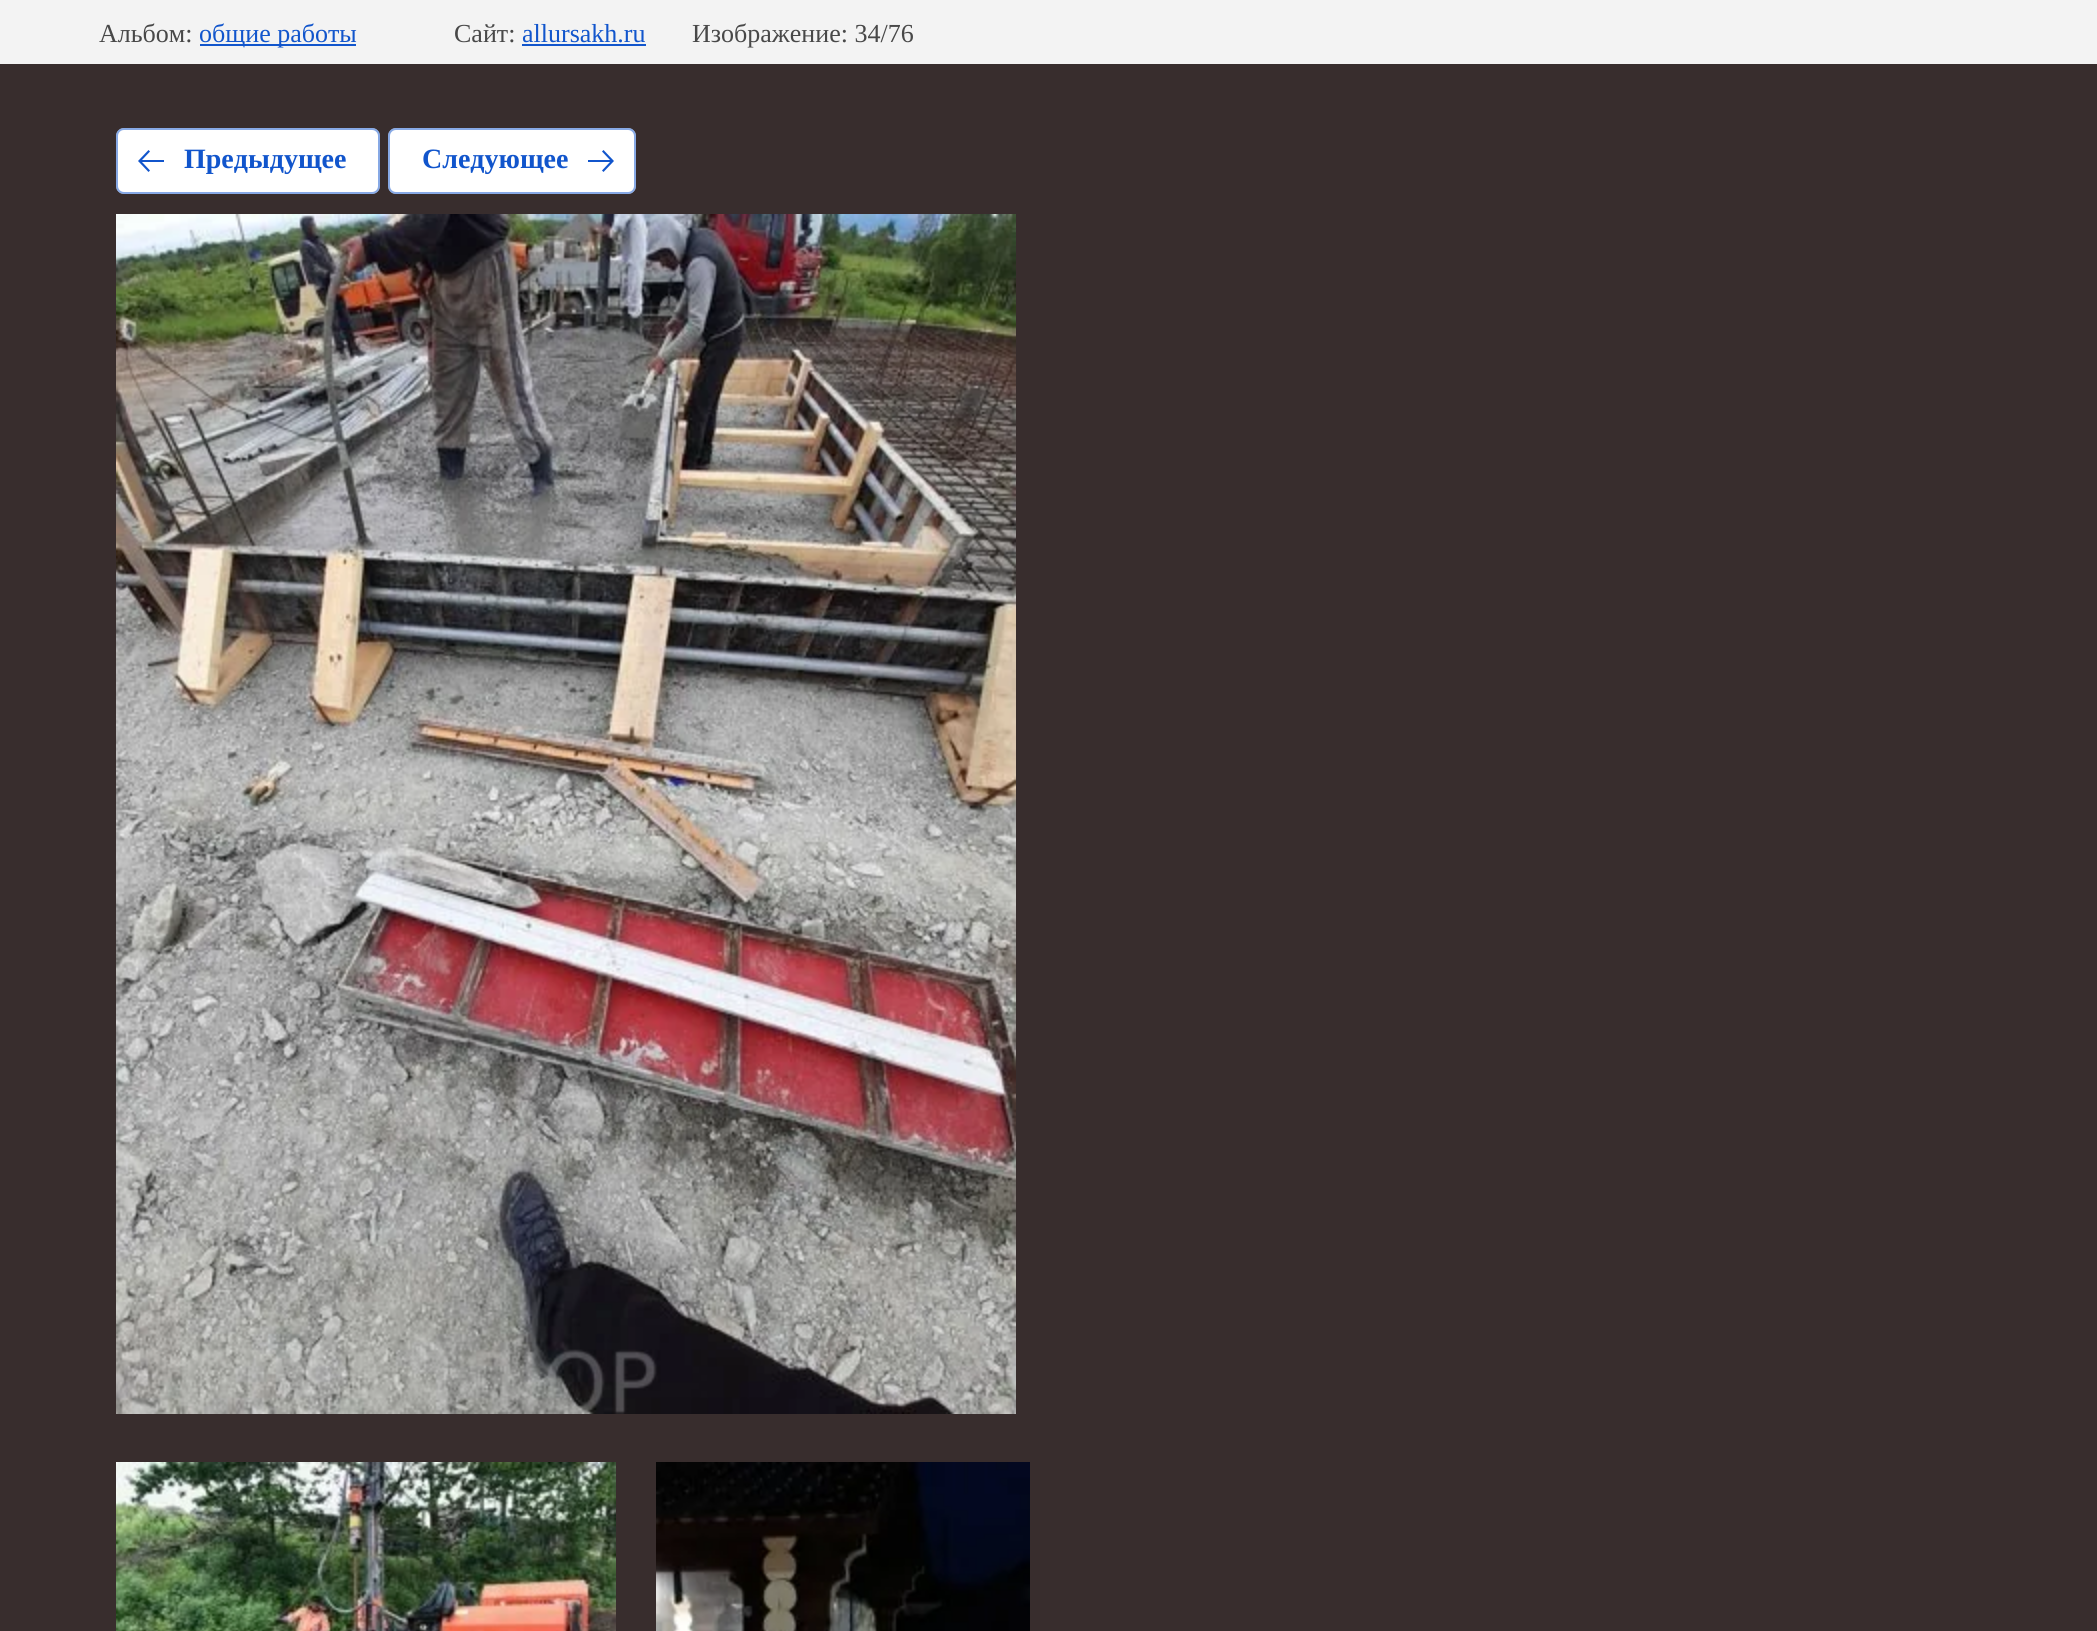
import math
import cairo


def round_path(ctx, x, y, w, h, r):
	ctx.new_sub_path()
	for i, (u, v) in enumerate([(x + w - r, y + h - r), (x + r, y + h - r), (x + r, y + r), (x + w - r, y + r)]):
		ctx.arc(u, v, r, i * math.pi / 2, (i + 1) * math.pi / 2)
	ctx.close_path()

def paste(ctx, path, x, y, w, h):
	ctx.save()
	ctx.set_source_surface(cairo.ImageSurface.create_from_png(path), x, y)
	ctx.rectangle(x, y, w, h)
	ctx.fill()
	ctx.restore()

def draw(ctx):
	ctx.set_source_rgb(0.22, 0.176, 0.176)
	ctx.paint()
	ctx.set_source_rgb(0.953, 0.953, 0.953)
	ctx.rectangle(0, 0, 2097, 64)
	ctx.fill()
	ctx.select_font_face('Liberation Serif')
	ctx.set_font_size(26)
	ctx.set_source_rgb(0.282, 0.282, 0.282)
	ctx.move_to(99, 42)
	ctx.show_text('Альбом:')
	ctx.set_source_rgb(0.067, 0.333, 0.8)
	ctx.rectangle(200, 44, 156, 2)
	ctx.fill()
	ctx.move_to(199, 42)
	ctx.show_text('общие работы')
	ctx.set_source_rgb(0.282, 0.282, 0.282)
	ctx.move_to(454, 42)
	ctx.show_text('Сайт:')
	ctx.set_source_rgb(0.067, 0.333, 0.8)
	ctx.move_to(522, 42)
	ctx.show_text('allursakh.ru')
	ctx.rectangle(522, 44, 124, 2)
	ctx.fill()
	ctx.set_source_rgb(0.282, 0.282, 0.282)
	ctx.move_to(692, 42)
	ctx.show_text('Изображение: 34/76')
	ctx.set_source_rgb(1, 1, 1)
	round_path(ctx, 116, 128, 264, 66, 8)
	ctx.fill()
	round_path(ctx, 117, 129, 262, 64, 7)
	ctx.set_source_rgba(0.067, 0.333, 0.8, 0.5)
	ctx.stroke()
	ctx.set_source_rgb(0.067, 0.333, 0.8)
	ctx.new_path()
	ctx.move_to(150, 151.5)
	ctx.line_to(148.5, 150)
	ctx.line_to(138, 161)
	ctx.line_to(148.5, 172)
	ctx.line_to(150, 170.5)
	ctx.line_to(142, 162)
	ctx.line_to(164, 162)
	ctx.line_to(164, 160)
	ctx.line_to(142, 160)
	ctx.close_path()
	ctx.fill()
	ctx.select_font_face('Liberation Serif', cairo.FONT_SLANT_NORMAL, cairo.FONT_WEIGHT_BOLD)
	ctx.set_font_size(28)
	ctx.move_to(184, 168)
	ctx.show_text('Предыдущее')
	ctx.set_source_rgb(1, 1, 1)
	round_path(ctx, 388, 128, 248, 66, 8)
	ctx.fill()
	round_path(ctx, 389, 129, 246, 64, 7)
	ctx.set_source_rgba(0.067, 0.333, 0.8, 0.5)
	ctx.stroke()
	ctx.set_source_rgb(0.067, 0.333, 0.8)
	ctx.move_to(422, 168)
	ctx.show_text('Следующее')
	ctx.new_path()
	ctx.move_to(602, 151.5)
	ctx.line_to(603.5, 150)
	ctx.line_to(614, 161)
	ctx.line_to(603.5, 172)
	ctx.line_to(602, 170.5)
	ctx.line_to(610, 162)
	ctx.line_to(588, 162)
	ctx.line_to(588, 160)
	ctx.line_to(610, 160)
	ctx.close_path()
	ctx.fill()
	paste(ctx, 'media/1.png', 116, 214, 900, 1200)
	paste(ctx, 'media/2.png', 116, 1462, 500, 169)
	paste(ctx, 'media/3.png', 656, 1462, 374, 169)


surface = cairo.ImageSurface(cairo.FORMAT_RGB24, 2097, 1631)
ctx = cairo.Context(surface)
options = cairo.FontOptions()
options.set_hint_metrics(cairo.HINT_METRICS_OFF)
options.set_hint_style(cairo.HINT_STYLE_NONE)
ctx.set_font_options(options)
ctx.set_miter_limit(4)
draw(ctx)
surface.write_to_png('image.png')
